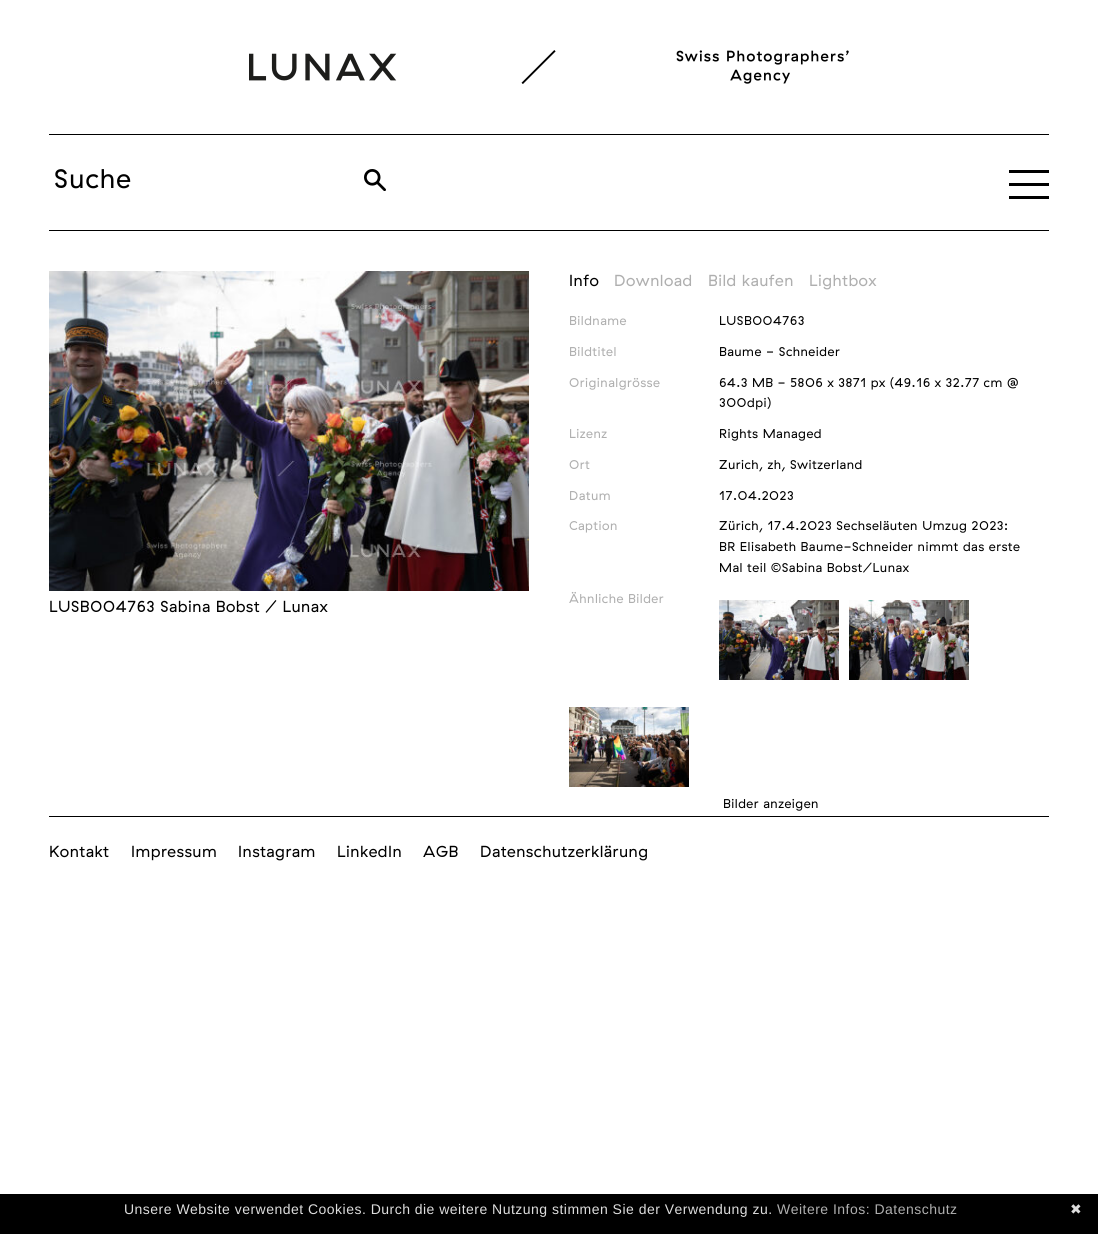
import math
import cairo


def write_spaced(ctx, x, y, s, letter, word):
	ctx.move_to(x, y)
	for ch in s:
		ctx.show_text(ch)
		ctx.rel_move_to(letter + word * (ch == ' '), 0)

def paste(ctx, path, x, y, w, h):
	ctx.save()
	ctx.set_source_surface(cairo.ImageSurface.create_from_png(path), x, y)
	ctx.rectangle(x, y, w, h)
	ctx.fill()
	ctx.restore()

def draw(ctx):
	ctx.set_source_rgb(1, 1, 1)
	ctx.paint()
	ctx.set_source_rgb(0, 0, 0)
	ctx.rectangle(49, 230, 1000, 1)
	ctx.fill()
	paste(ctx, 'media/1.png', 249, 50, 600, 34)
	ctx.rectangle(49, 134, 1000, 1)
	ctx.fill()
	ctx.select_font_face('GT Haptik')
	ctx.set_font_size(27)
	write_spaced(ctx, 54, 188, 'Suche', 1, 0)
	paste(ctx, 'media/2.png', 364, 169, 22, 22)
	ctx.rectangle(1009, 170, 40, 3)
	ctx.rectangle(1009, 183, 40, 3)
	ctx.rectangle(1009, 196, 40, 3)
	ctx.fill()
	ctx.set_font_size(16)
	write_spaced(ctx, 569, 286, 'Info', 0.48, 0)
	ctx.set_source_rgb(0.686, 0.686, 0.686)
	for x, y, s in [
		(614, 286, 'Download'),
		(708, 286, 'Bild kaufen'),
		(809, 286, 'Lightbox'),
	]:
		write_spaced(ctx, x, y, s, 0.48, 0)
	paste(ctx, 'media/3.png', 49, 271, 480, 320)
	ctx.set_source_rgb(0, 0, 0)
	write_spaced(ctx, 49, 612, 'LUSB004763 Sabina Bobst / Lunax', 0.48, 0)
	ctx.set_font_size(12.8)
	ctx.set_source_rgb(0.686, 0.686, 0.686)
	write_spaced(ctx, 569, 325, 'Bildname', 0.48, 0)
	ctx.set_source_rgb(0, 0, 0)
	write_spaced(ctx, 719, 325, 'LUSB004763', 0.48, 0)
	ctx.set_source_rgb(0.686, 0.686, 0.686)
	write_spaced(ctx, 569, 356, 'Bildtitel', 0.48, 0)
	ctx.set_source_rgb(0, 0, 0)
	write_spaced(ctx, 719, 356, 'Baume - Schneider', 0.48, 0)
	ctx.set_source_rgb(0.686, 0.686, 0.686)
	write_spaced(ctx, 569, 387, 'Originalgrösse', 0.48, 0)
	ctx.set_source_rgb(0, 0, 0)
	write_spaced(ctx, 719, 387, '64.3 MB - 5806 x 3871 px (49.16 x 32.77 cm @', 0.48, -0.25)
	write_spaced(ctx, 719, 407, '300dpi)', 0.48, 0)
	ctx.set_source_rgb(0.686, 0.686, 0.686)
	write_spaced(ctx, 569, 438, 'Lizenz', 0.48, 0)
	ctx.set_source_rgb(0, 0, 0)
	write_spaced(ctx, 719, 438, 'Rights Managed', 0.48, 0)
	ctx.set_source_rgb(0.686, 0.686, 0.686)
	write_spaced(ctx, 569, 469, 'Ort', 0.48, 0)
	ctx.set_source_rgb(0, 0, 0)
	write_spaced(ctx, 719, 469, 'Zurich, zh, Switzerland', 0.48, 0)
	ctx.set_source_rgb(0.686, 0.686, 0.686)
	write_spaced(ctx, 569, 500, 'Datum', 0.48, 0)
	ctx.set_source_rgb(0, 0, 0)
	write_spaced(ctx, 719, 500, '17.04.2023', 0.48, 0)
	ctx.set_source_rgb(0.686, 0.686, 0.686)
	write_spaced(ctx, 569, 530, 'Caption', 0.48, 0)
	ctx.set_source_rgb(0, 0, 0)
	for x, y, s in [
		(719, 530, 'Zürich, 17.4.2023 Sechseläuten Umzug 2023:'),
		(719, 551, 'BR Elisabeth Baume-Schneider nimmt das erste'),
		(719, 572, 'Mal teil ©Sabina Bobst/Lunax'),
	]:
		write_spaced(ctx, x, y, s, 0.48, 0)
	ctx.set_source_rgb(0.686, 0.686, 0.686)
	write_spaced(ctx, 569, 603, 'Ähnliche Bilder', 0.48, 0)
	paste(ctx, 'media/4.png', 719, 600, 120, 80)
	paste(ctx, 'media/5.png', 849, 600, 120, 80)
	paste(ctx, 'media/6.png', 569, 707, 120, 80)
	ctx.set_source_rgb(0, 0, 0)
	write_spaced(ctx, 723, 808, 'Bilder anzeigen', 0.48, 0)
	ctx.rectangle(49, 816, 1000, 1)
	ctx.fill()
	ctx.set_font_size(16)
	for x, y, s in [
		(49, 857, 'Kontakt'),
		(131, 857, 'Impressum'),
		(238, 857, 'Instagram'),
		(337, 857, 'LinkedIn'),
		(423, 857, 'AGB'),
		(480, 857, 'Datenschutzerklärung'),
	]:
		write_spaced(ctx, x, y, s, 0.48, 0)
	ctx.rectangle(0, 1194, 1098, 40)
	ctx.fill()
	ctx.select_font_face('Liberation Sans')
	ctx.set_font_size(14)
	ctx.set_source_rgb(0.867, 0.867, 0.867)
	write_spaced(ctx, 124, 1214, 'Unsere Website verwendet Cookies. Durch die weitere Nutzung stimmen Sie der Verwendung zu.', 0.48, 0)
	ctx.set_source_rgb(0.686, 0.686, 0.686)
	write_spaced(ctx, 777, 1214, 'Weitere Infos: Datenschutz', 0.48, 0)
	ctx.select_font_face('DejaVu Sans')
	ctx.set_source_rgb(0.867, 0.867, 0.867)
	write_spaced(ctx, 1070, 1214, '✖', 0.48, 0)


surface = cairo.ImageSurface(cairo.FORMAT_RGB24, 1098, 1234)
ctx = cairo.Context(surface)
options = cairo.FontOptions()
options.set_hint_metrics(cairo.HINT_METRICS_OFF)
options.set_hint_style(cairo.HINT_STYLE_NONE)
ctx.set_font_options(options)
ctx.set_miter_limit(4)
draw(ctx)
surface.write_to_png('image.png')
